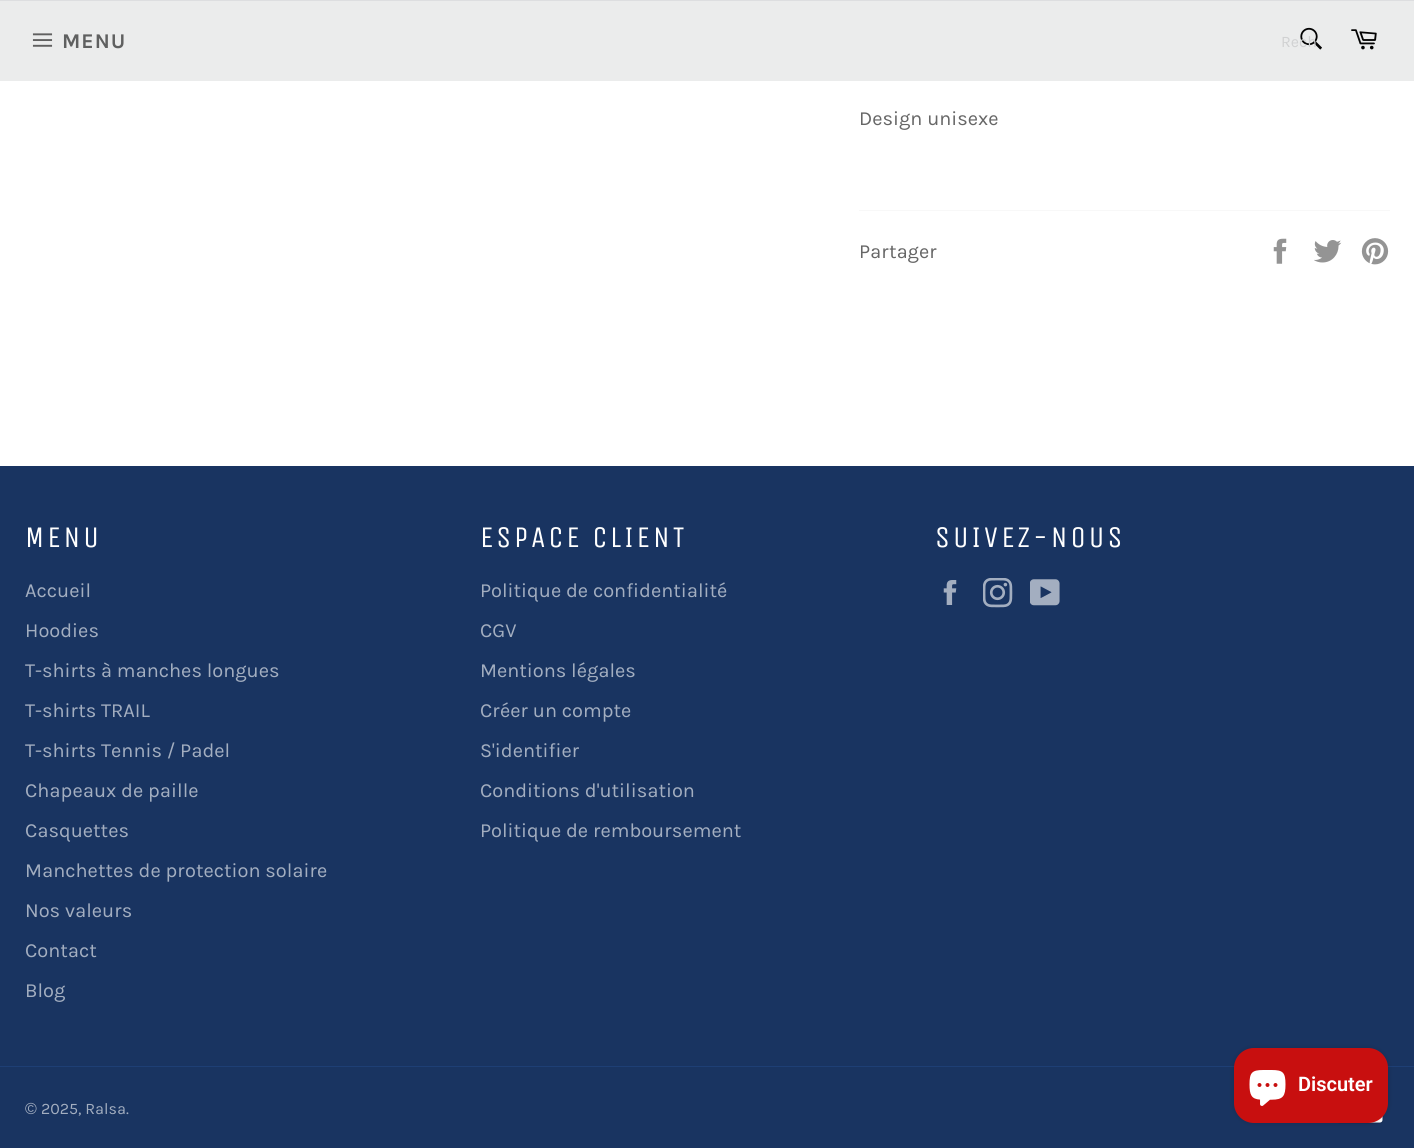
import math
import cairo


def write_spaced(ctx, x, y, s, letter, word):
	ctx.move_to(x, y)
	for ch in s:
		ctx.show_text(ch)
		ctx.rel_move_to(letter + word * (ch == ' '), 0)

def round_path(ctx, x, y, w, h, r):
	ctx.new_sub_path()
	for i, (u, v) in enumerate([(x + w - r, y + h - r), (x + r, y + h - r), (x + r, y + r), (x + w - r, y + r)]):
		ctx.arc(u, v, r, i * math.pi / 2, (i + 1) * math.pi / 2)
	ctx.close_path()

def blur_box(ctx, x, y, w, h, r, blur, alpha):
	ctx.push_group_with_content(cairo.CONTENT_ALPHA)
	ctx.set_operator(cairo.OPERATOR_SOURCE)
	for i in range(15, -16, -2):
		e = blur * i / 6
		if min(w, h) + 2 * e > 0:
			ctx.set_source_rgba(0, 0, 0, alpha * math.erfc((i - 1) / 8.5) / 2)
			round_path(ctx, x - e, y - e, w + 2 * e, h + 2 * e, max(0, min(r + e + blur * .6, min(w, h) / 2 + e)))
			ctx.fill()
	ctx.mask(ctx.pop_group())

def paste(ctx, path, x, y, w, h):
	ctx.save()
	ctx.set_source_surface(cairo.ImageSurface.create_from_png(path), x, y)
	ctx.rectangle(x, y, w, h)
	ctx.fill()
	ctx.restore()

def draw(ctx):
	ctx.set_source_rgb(1, 1, 1)
	ctx.paint()
	ctx.set_source_rgb(0.918, 0.922, 0.925)
	ctx.rectangle(0, 1, 1414, 80)
	ctx.fill()
	ctx.set_source_rgb(0.867, 0.871, 0.878)
	ctx.rectangle(0, 0, 1414, 1)
	ctx.fill()
	paste(ctx, 'media/1.png', 32, 33, 21, 14)
	ctx.select_font_face('Karla', cairo.FONT_SLANT_NORMAL, cairo.FONT_WEIGHT_BOLD)
	ctx.set_font_size(21)
	ctx.set_source_rgb(0.373, 0.376, 0.376)
	write_spaced(ctx, 62, 48, 'MENU', 1, 0)
	paste(ctx, 'media/2.png', 1300, 27, 22, 23)
	ctx.select_font_face('Karla')
	ctx.set_font_size(16)
	ctx.set_source_rgb(0.816, 0.82, 0.824)
	ctx.move_to(1281, 47)
	ctx.show_text('Rech')
	paste(ctx, 'media/3.png', 1351, 29, 26, 21)
	ctx.set_font_size(20)
	ctx.set_source_rgb(0.4, 0.4, 0.4)
	ctx.move_to(859, 125)
	ctx.show_text('Design unisexe')
	ctx.set_source_rgb(0.969, 0.969, 0.969)
	ctx.rectangle(859, 210, 531, 1)
	ctx.fill()
	ctx.set_source_rgb(0.4, 0.4, 0.4)
	ctx.move_to(859, 258)
	ctx.show_text('Partager')
	paste(ctx, 'media/4.png', 1273, 238, 14, 26)
	paste(ctx, 'media/5.png', 1314, 240, 28, 23)
	paste(ctx, 'media/6.png', 1361, 238, 28, 27)
	ctx.set_source_rgb(0.098, 0.204, 0.38)
	ctx.rectangle(0, 466, 1414, 682)
	ctx.fill()
	ctx.select_font_face('Unica One')
	ctx.set_font_size(30)
	ctx.set_source_rgb(1, 1, 1)
	write_spaced(ctx, 25, 547, 'MENU', 3, 0)
	ctx.select_font_face('Karla')
	ctx.set_font_size(20)
	ctx.set_source_rgb(0.639, 0.682, 0.753)
	for x, y, s in [
		(25, 597, 'Accueil'),
		(25, 637, 'Hoodies'),
		(25, 677, 'T-shirts à manches longues'),
		(25, 717, 'T-shirts TRAIL'),
		(25, 757, 'T-shirts Tennis / Padel'),
		(25, 797, 'Chapeaux de paille'),
		(25, 837, 'Casquettes'),
		(25, 877, 'Manchettes de protection solaire'),
		(25, 917, 'Nos valeurs'),
		(25, 957, 'Contact'),
		(25, 997, 'Blog'),
	]:
		ctx.move_to(x, y)
		ctx.show_text(s)
	ctx.select_font_face('Unica One')
	ctx.set_font_size(30)
	ctx.set_source_rgb(1, 1, 1)
	write_spaced(ctx, 480, 547, 'ESPACE CLIENT', 3, 0)
	ctx.select_font_face('Karla')
	ctx.set_font_size(20)
	ctx.set_source_rgb(0.639, 0.682, 0.753)
	for x, y, s in [
		(480, 597, 'Politique de confidentialité'),
		(480, 637, 'CGV'),
		(480, 677, 'Mentions légales'),
		(480, 717, 'Créer un compte'),
		(480, 757, 'S\'identifier'),
		(480, 797, 'Conditions d\'utilisation'),
		(480, 837, 'Politique de remboursement'),
	]:
		ctx.move_to(x, y)
		ctx.show_text(s)
	ctx.select_font_face('Unica One')
	ctx.set_font_size(30)
	ctx.set_source_rgb(1, 1, 1)
	write_spaced(ctx, 935, 547, 'SUIVEZ-NOUS', 3, 0)
	paste(ctx, 'media/7.png', 943, 580, 14, 25)
	paste(ctx, 'media/8.png', 983, 578, 30, 30)
	paste(ctx, 'media/9.png', 1030, 579, 30, 27)
	ctx.set_source_rgb(0.118, 0.247, 0.459)
	ctx.rectangle(0, 1066, 1414, 1)
	ctx.fill()
	ctx.select_font_face('Liberation Sans')
	ctx.set_font_size(16)
	ctx.set_source_rgb(0.639, 0.682, 0.753)
	ctx.move_to(25, 1114)
	ctx.show_text('©')
	ctx.select_font_face('Karla')
	ctx.move_to(41, 1114)
	ctx.show_text('2025, Ralsa.')
	paste(ctx, 'media/10.png', 1338, 1115, 46, 9)
	ctx.set_source_rgb(0, 0, 0)
	blur_box(ctx, 1234, 1048, 154, 75, 20, 3, 0.15)
	ctx.set_source_rgb(0.784, 0.059, 0.059)
	round_path(ctx, 1234, 1048, 154, 75, 20)
	ctx.fill()
	paste(ctx, 'media/11.png', 1249, 1070, 37, 36)
	ctx.select_font_face('Roboto SemiBold')
	ctx.set_font_size(20)
	ctx.set_source_rgb(1, 1, 1)
	ctx.move_to(1298, 1091)
	ctx.show_text('Discuter')


surface = cairo.ImageSurface(cairo.FORMAT_RGB24, 1414, 1148)
ctx = cairo.Context(surface)
options = cairo.FontOptions()
options.set_hint_metrics(cairo.HINT_METRICS_OFF)
options.set_hint_style(cairo.HINT_STYLE_NONE)
ctx.set_font_options(options)
ctx.set_miter_limit(4)
draw(ctx)
surface.write_to_png('image.png')
